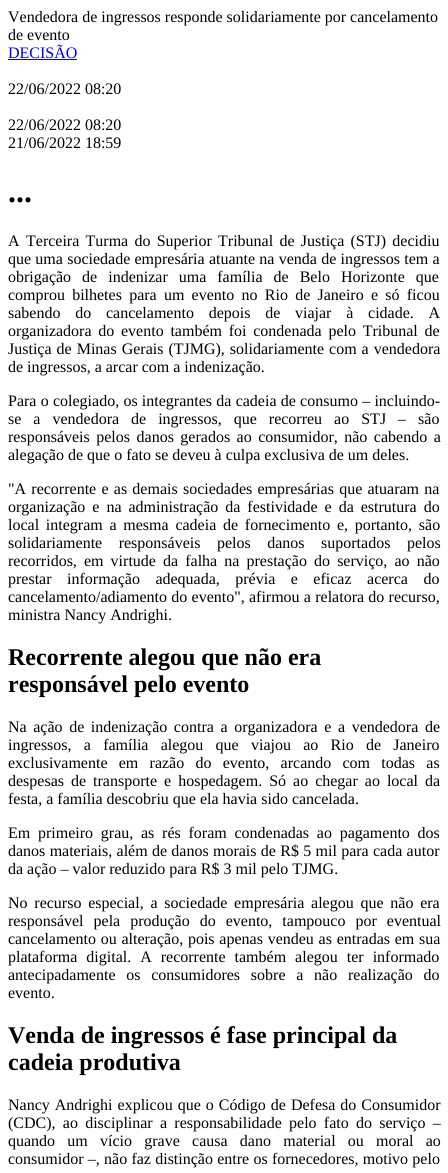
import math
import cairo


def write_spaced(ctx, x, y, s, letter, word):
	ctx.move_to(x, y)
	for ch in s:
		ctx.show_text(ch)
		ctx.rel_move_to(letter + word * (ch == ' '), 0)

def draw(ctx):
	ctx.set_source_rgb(1, 1, 1)
	ctx.paint()
	ctx.select_font_face('Liberation Serif')
	ctx.set_font_size(16)
	ctx.set_source_rgb(0, 0, 0)
	ctx.move_to(8, 22)
	ctx.show_text('Vendedora de ingressos responde solidariamente por cancelamento')
	ctx.move_to(8, 40)
	ctx.show_text('de evento')
	ctx.set_source_rgb(0, 0, 0.933)
	ctx.move_to(8, 58)
	ctx.show_text('DECISÃO')
	ctx.rectangle(8, 59, 69, 1)
	ctx.fill()
	ctx.set_source_rgb(0, 0, 0)
	for x, y, s in [
		(8, 94, '22/06/2022 08:20'),
		(8, 130, '22/06/2022 08:20'),
		(8, 148, '21/06/2022 18:59'),
	]:
		ctx.move_to(x, y)
		ctx.show_text(s)
	ctx.select_font_face('Liberation Serif', cairo.FONT_SLANT_NORMAL, cairo.FONT_WEIGHT_BOLD)
	ctx.set_font_size(32)
	ctx.move_to(8, 202)
	ctx.show_text('...')
	ctx.select_font_face('Liberation Serif')
	ctx.set_font_size(16)
	ctx.move_to(8, 246)
	ctx.show_text('A')
	write_spaced(ctx, 26, 246, 'Terceira Turma do Superior Tribunal de Justiça (STJ) decidiu', 0, 2.25)
	write_spaced(ctx, 8, 264, 'que uma sociedade empresária atuante na venda de ingressos tem a', 0, 0.25)
	write_spaced(ctx, 8, 282, 'obrigação de indenizar uma família de Belo Horizonte que', 0, 7)
	write_spaced(ctx, 8, 300, 'comprou bilhetes para um evento no Rio de Janeiro e só ficou', 0, 3.25)
	write_spaced(ctx, 8, 318, 'sabendo do cancelamento depois de viajar à cidade. A', 0, 10.75)
	write_spaced(ctx, 8, 336, 'organizadora do evento também foi condenada pelo Tribunal de', 0, 2.75)
	write_spaced(ctx, 8, 354, 'Justiça de Minas Gerais (TJMG), solidariamente com a vendedora', 0, 1)
	ctx.move_to(8, 372)
	ctx.show_text('de ingressos, a arcar com a indenização.')
	write_spaced(ctx, 8, 406, 'Para o colegiado, os integrantes da cadeia de consumo – incluindo-', 0, 0.25)
	write_spaced(ctx, 8, 424, 'se a vendedora de ingressos, que recorreu ao STJ – são', 0, 8)
	write_spaced(ctx, 8, 442, 'responsáveis pelos danos gerados ao consumidor, não cabendo a', 0, 2.5)
	ctx.move_to(8, 460)
	ctx.show_text('alegação de que o fato se deveu à culpa exclusiva de um deles.')
	write_spaced(ctx, 8, 494, '"A recorrente e as demais sociedades empresárias que atuaram na', 0, 1.25)
	write_spaced(ctx, 8, 512, 'organização e na administração da festividade e da estrutura do', 0, 3)
	write_spaced(ctx, 8, 530, 'local integram a mesma cadeia de fornecimento e, portanto, são', 0, 2.75)
	write_spaced(ctx, 8, 548, 'solidariamente responsáveis pelos danos suportados pelos', 0, 12.5)
	write_spaced(ctx, 8, 566, 'recorridos, em virtude da falha na prestação do serviço, ao não', 0, 3.1)
	write_spaced(ctx, 8, 584, 'prestar informação adequada, prévia e eficaz acerca do', 0, 11.5)
	write_spaced(ctx, 8, 602, 'cancelamento/adiamento do evento", afirmou a relatora do recurso,', 0, 0.25)
	ctx.move_to(8, 620)
	ctx.show_text('ministra Nancy Andrighi.')
	ctx.select_font_face('Liberation Serif', cairo.FONT_SLANT_NORMAL, cairo.FONT_WEIGHT_BOLD)
	ctx.set_font_size(24)
	ctx.move_to(8, 665)
	ctx.show_text('Recorrente alegou que não era')
	ctx.move_to(8, 692)
	ctx.show_text('responsável pelo evento')
	ctx.select_font_face('Liberation Serif')
	ctx.set_font_size(16)
	write_spaced(ctx, 8, 732, 'Na ação de indenização contra a organizadora e a vendedora de', 0, 2.6)
	write_spaced(ctx, 8, 750, 'ingressos, a família alegou que viajou ao Rio de Janeiro', 0, 8.25)
	write_spaced(ctx, 8, 768, 'exclusivamente em razão do evento, arcando com todas as', 0, 7.25)
	write_spaced(ctx, 8, 786, 'despesas de transporte e hospedagem. Só ao chegar ao local da', 0, 3)
	ctx.move_to(8, 804)
	ctx.show_text('festa, a família descobriu que ela havia sido cancelada.')
	write_spaced(ctx, 8, 838, 'Em primeiro grau, as rés foram condenadas ao pagamento dos', 0, 3.75)
	write_spaced(ctx, 8, 856, 'danos materiais, além de danos morais de R$ 5 mil para cada autor', 0, 0.3)
	ctx.move_to(8, 874)
	ctx.show_text('da ação – valor reduzido para R$ 3 mil pelo TJMG.')
	write_spaced(ctx, 8, 908, 'No recurso especial, a sociedade empresária alegou que não era', 0, 2.75)
	write_spaced(ctx, 8, 926, 'responsável pela produção do evento, tampouco por eventual', 0, 6)
	write_spaced(ctx, 8, 944, 'cancelamento ou alteração, pois apenas vendeu as entradas em sua', 0, 0.75)
	write_spaced(ctx, 8, 962, 'plataforma digital. A recorrente também alegou ter informado', 0, 5)
	write_spaced(ctx, 8, 980, 'antecipadamente os consumidores sobre a não realização do', 0, 6.75)
	ctx.move_to(8, 998)
	ctx.show_text('evento.')
	ctx.select_font_face('Liberation Serif', cairo.FONT_SLANT_NORMAL, cairo.FONT_WEIGHT_BOLD)
	ctx.set_font_size(24)
	ctx.move_to(8, 1043)
	ctx.show_text('Venda de ingressos é fase principal da')
	ctx.move_to(8, 1070)
	ctx.show_text('cadeia produtiva')
	ctx.select_font_face('Liberation Serif')
	ctx.set_font_size(16)
	write_spaced(ctx, 8, 1110, 'Nancy Andrighi explicou que o Código de Defesa do Consumidor', 0, 1)
	write_spaced(ctx, 8, 1128, '(CDC), ao disciplinar a responsabilidade pelo fato do serviço –', 0, 3.25)
	write_spaced(ctx, 8, 1146, 'quando um vício grave causa dano material ou moral ao', 0, 8.25)
	write_spaced(ctx, 8, 1164, 'consumidor –, não faz distinção entre os fornecedores, motivo pelo', 0, 0.25)


surface = cairo.ImageSurface(cairo.FORMAT_RGB24, 448, 1173)
ctx = cairo.Context(surface)
options = cairo.FontOptions()
options.set_hint_metrics(cairo.HINT_METRICS_OFF)
options.set_hint_style(cairo.HINT_STYLE_NONE)
ctx.set_font_options(options)
ctx.set_miter_limit(4)
draw(ctx)
surface.write_to_png('image.png')
